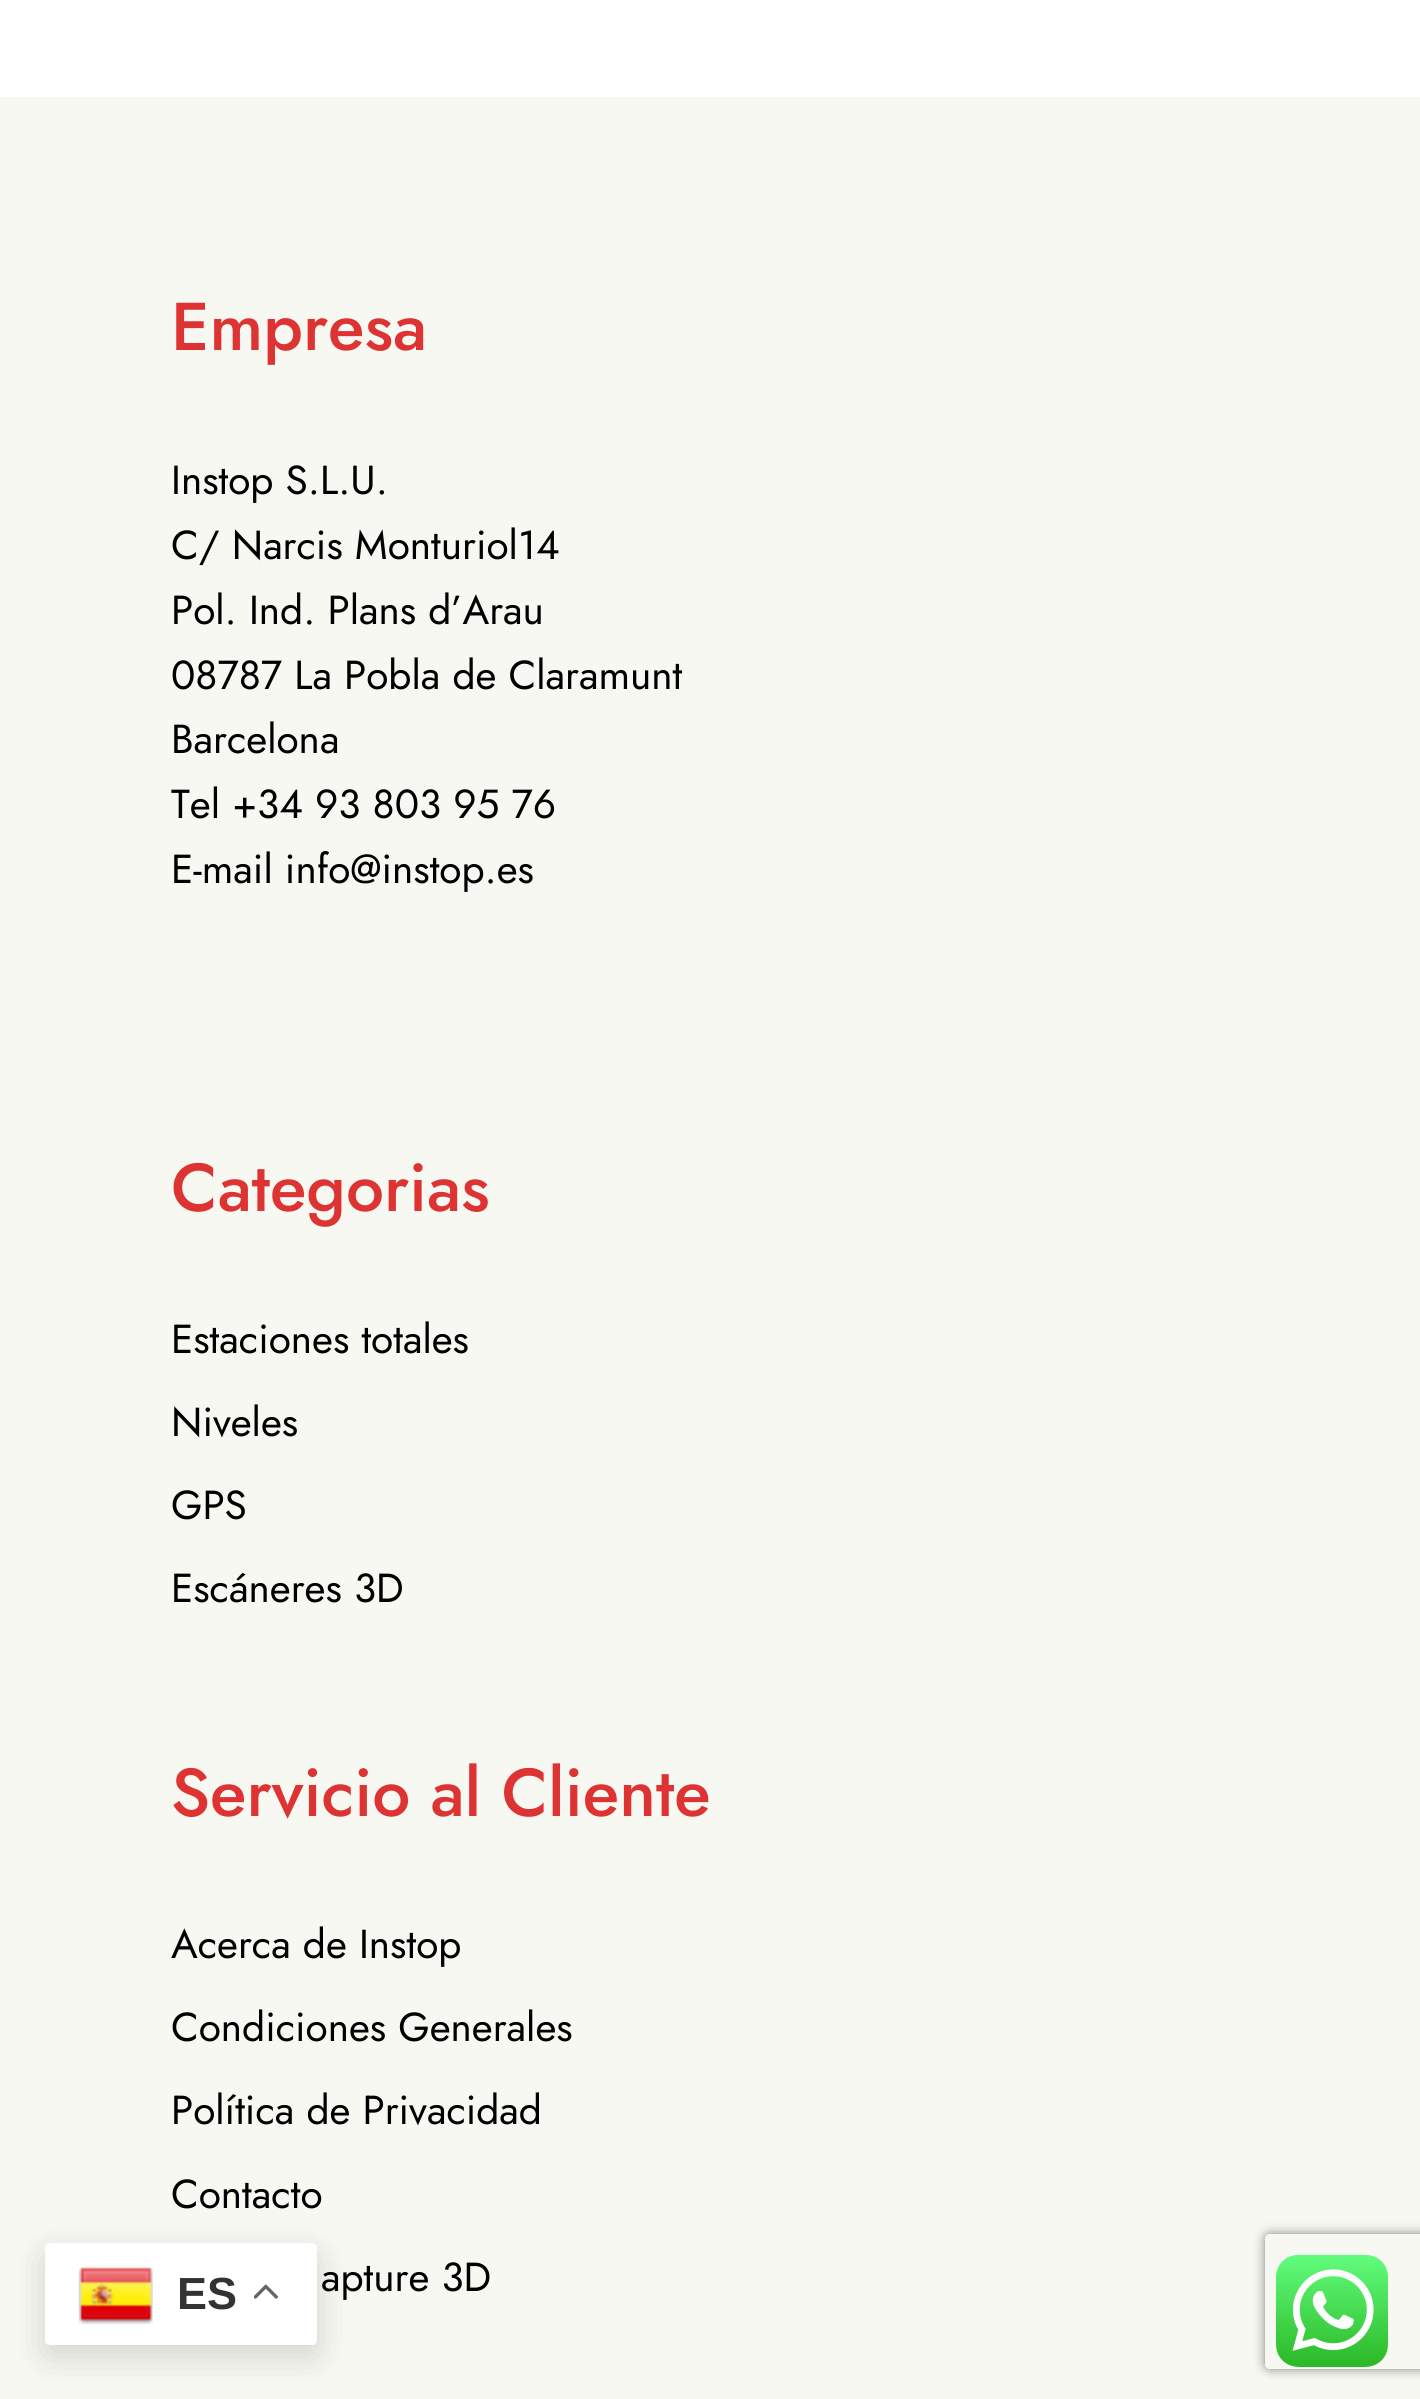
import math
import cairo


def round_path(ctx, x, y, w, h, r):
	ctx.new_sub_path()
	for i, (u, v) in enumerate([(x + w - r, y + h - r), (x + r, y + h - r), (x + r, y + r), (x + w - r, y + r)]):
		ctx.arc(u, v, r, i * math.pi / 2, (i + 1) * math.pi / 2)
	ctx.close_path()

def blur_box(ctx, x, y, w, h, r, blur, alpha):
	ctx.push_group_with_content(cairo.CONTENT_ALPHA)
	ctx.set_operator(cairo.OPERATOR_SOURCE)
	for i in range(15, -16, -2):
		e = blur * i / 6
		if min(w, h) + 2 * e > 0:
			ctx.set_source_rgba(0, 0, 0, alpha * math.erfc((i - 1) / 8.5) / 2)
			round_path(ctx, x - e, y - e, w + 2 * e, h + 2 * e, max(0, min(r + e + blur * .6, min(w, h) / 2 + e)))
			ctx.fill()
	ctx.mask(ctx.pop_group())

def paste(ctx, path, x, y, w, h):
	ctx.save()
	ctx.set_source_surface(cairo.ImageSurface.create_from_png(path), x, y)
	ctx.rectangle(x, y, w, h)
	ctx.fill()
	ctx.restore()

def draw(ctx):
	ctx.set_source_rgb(1, 1, 1)
	ctx.paint()
	ctx.set_source_rgb(0.969, 0.969, 0.949)
	ctx.rectangle(0, 97, 1420, 2302)
	ctx.fill()
	ctx.select_font_face('Jost Medium')
	ctx.set_font_size(67.5)
	ctx.set_source_rgb(0.867, 0.2, 0.2)
	ctx.move_to(171, 350)
	ctx.show_text('Empresa')
	ctx.select_font_face('Jost')
	ctx.set_font_size(40.5)
	ctx.set_source_rgb(0, 0, 0)
	for x, y, s in [
		(171, 494, 'Instop S.L.U.'),
		(171, 559, 'C/ Narcis Monturiol14'),
		(171, 624, 'Pol. Ind. Plans d’Arau'),
		(171, 689, '08787 La Pobla de Claramunt'),
		(171, 753, 'Barcelona'),
		(171, 818, 'Tel +34 93 803 95 76'),
		(171, 883, 'E-mail info@instop.es'),
	]:
		ctx.move_to(x, y)
		ctx.show_text(s)
	ctx.select_font_face('Jost Medium')
	ctx.set_font_size(67.5)
	ctx.set_source_rgb(0.867, 0.2, 0.2)
	ctx.move_to(171, 1211)
	ctx.show_text('Categorias')
	ctx.select_font_face('Jost')
	ctx.set_font_size(40.5)
	ctx.set_source_rgb(0, 0, 0)
	for x, y, s in [
		(171, 1353, 'Estaciones totales'),
		(171, 1436, 'Niveles'),
		(171, 1519, 'GPS'),
		(171, 1602, 'Escáneres 3D'),
	]:
		ctx.move_to(x, y)
		ctx.show_text(s)
	ctx.select_font_face('Jost Medium')
	ctx.set_font_size(67.5)
	ctx.set_source_rgb(0.867, 0.2, 0.2)
	ctx.move_to(171, 1816)
	ctx.show_text('Servicio al Cliente')
	ctx.select_font_face('Jost')
	ctx.set_font_size(40.5)
	ctx.set_source_rgb(0, 0, 0)
	for x, y, s in [
		(171, 1958, 'Acerca de Instop'),
		(171, 2041, 'Condiciones Generales'),
		(171, 2124, 'Política de Privacidad'),
		(171, 2208, 'Contacto'),
		(321, 2291, 'apture 3D'),
	]:
		ctx.move_to(x, y)
		ctx.show_text(s)
	ctx.save()
	ctx.set_fill_rule(cairo.FILL_RULE_EVEN_ODD)
	ctx.new_path()
	ctx.move_to(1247, 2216)
	ctx.line_to(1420, 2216)
	ctx.line_to(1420, 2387)
	ctx.line_to(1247, 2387)
	ctx.close_path()
	ctx.move_to(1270, 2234)
	ctx.line_to(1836, 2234)
	ctx.curve_to(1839, 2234, 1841, 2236, 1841, 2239)
	ctx.line_to(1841, 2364)
	ctx.curve_to(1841, 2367, 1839, 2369, 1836, 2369)
	ctx.line_to(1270, 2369)
	ctx.curve_to(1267, 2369, 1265, 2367, 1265, 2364)
	ctx.line_to(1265, 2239)
	ctx.curve_to(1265, 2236, 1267, 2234, 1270, 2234)
	ctx.close_path()
	ctx.clip()
	ctx.set_source_rgb(0.502, 0.502, 0.502)
	blur_box(ctx, 1265, 2234, 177, 135, 5, 5.5, 1)
	ctx.restore()
	ctx.set_source_rgb(0, 0, 0)
	blur_box(ctx, 45, 2255, 272, 101, 5, 17, 0.15)
	ctx.set_source_rgb(1, 1, 1)
	round_path(ctx, 45, 2243, 272, 102, 5)
	ctx.fill()
	paste(ctx, 'media/1.png', 78, 2266, 75, 59)
	ctx.select_font_face('Liberation Sans', cairo.FONT_SLANT_NORMAL, cairo.FONT_WEIGHT_BOLD)
	ctx.set_font_size(45)
	ctx.set_source_rgb(0.2, 0.2, 0.2)
	ctx.move_to(177, 2309)
	ctx.show_text('ES')
	paste(ctx, 'media/2.png', 254, 2284, 25, 15)
	paste(ctx, 'media/3.png', 1276, 2255, 112, 112)


surface = cairo.ImageSurface(cairo.FORMAT_RGB24, 1420, 2399)
ctx = cairo.Context(surface)
options = cairo.FontOptions()
options.set_hint_metrics(cairo.HINT_METRICS_OFF)
options.set_hint_style(cairo.HINT_STYLE_NONE)
ctx.set_font_options(options)
ctx.set_miter_limit(4)
draw(ctx)
surface.write_to_png('image.png')
